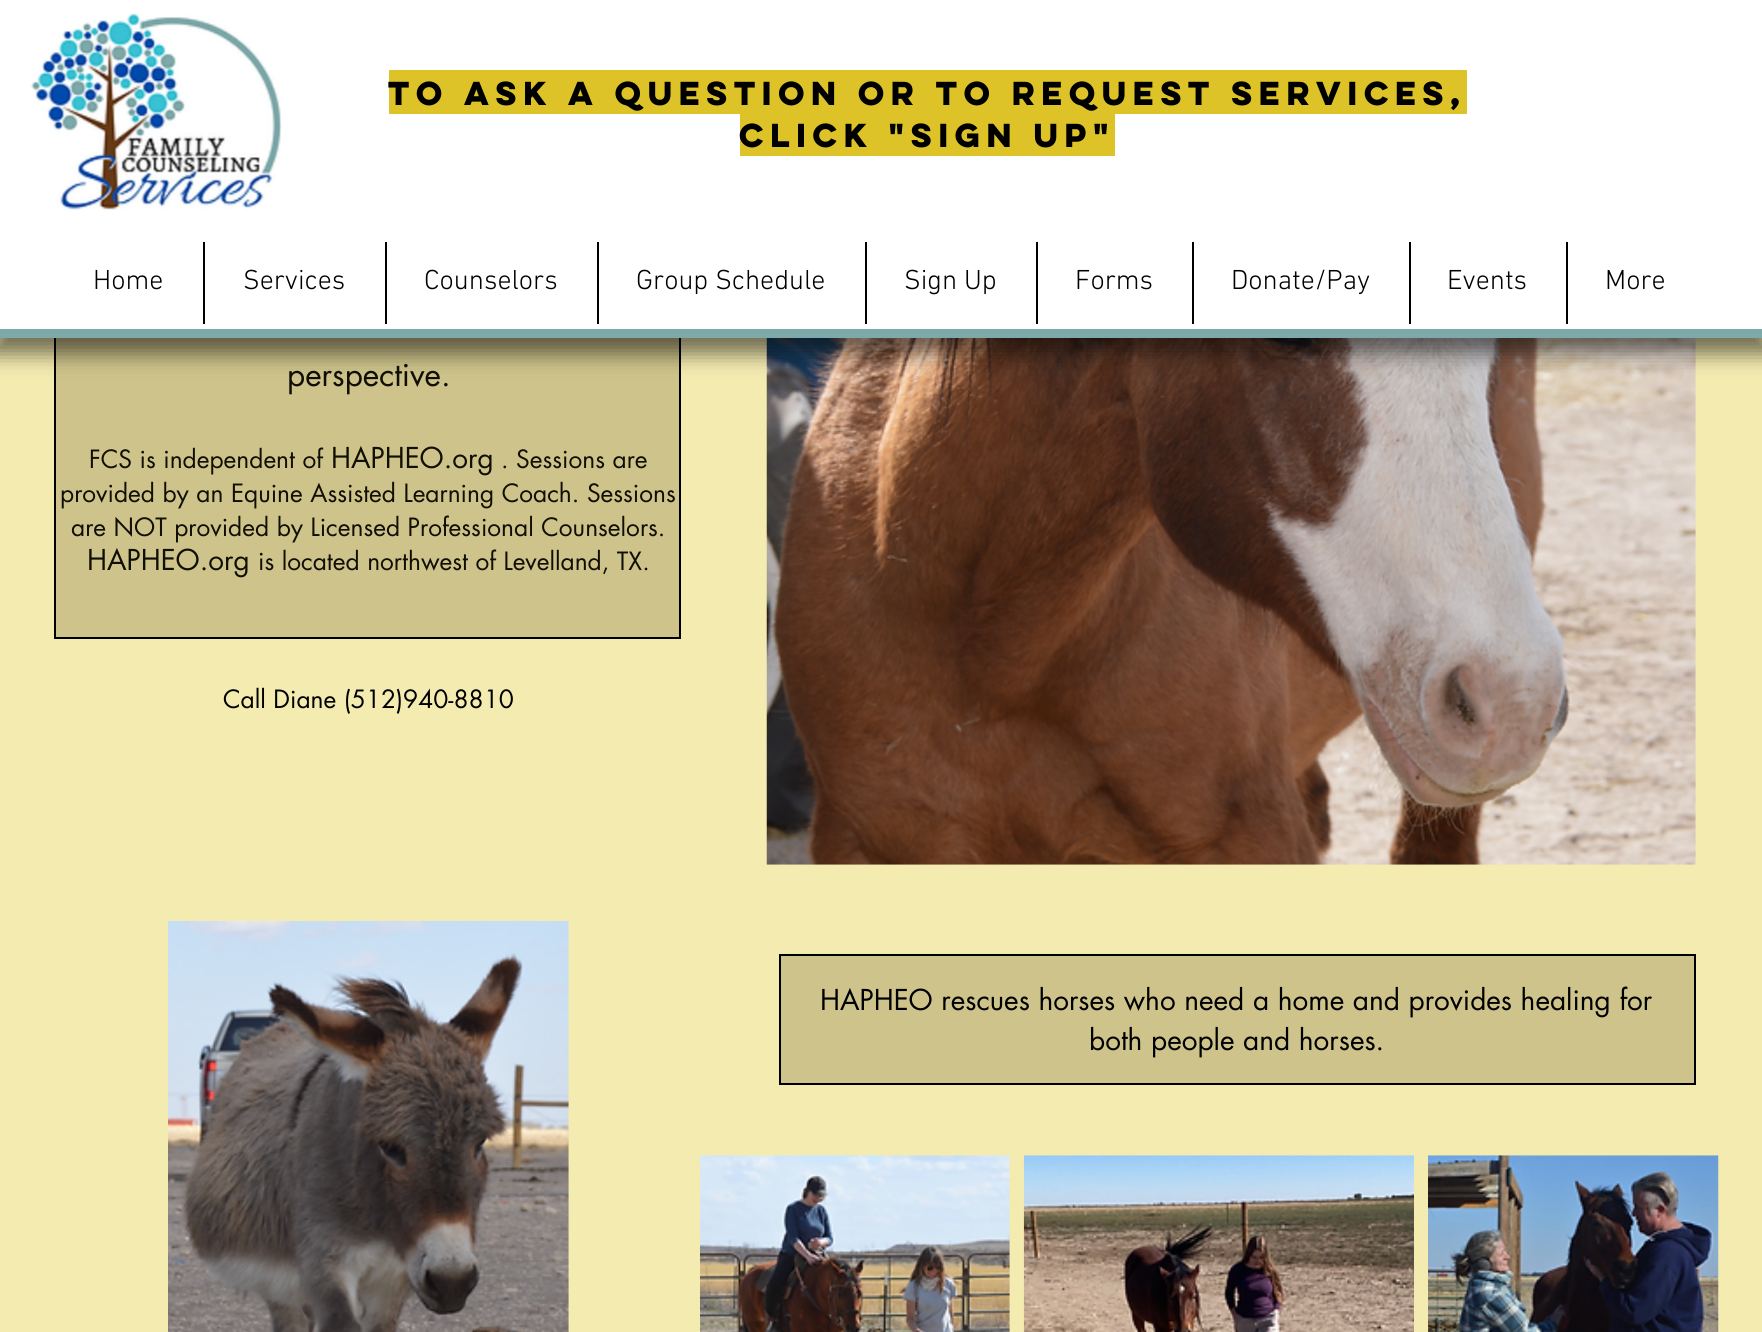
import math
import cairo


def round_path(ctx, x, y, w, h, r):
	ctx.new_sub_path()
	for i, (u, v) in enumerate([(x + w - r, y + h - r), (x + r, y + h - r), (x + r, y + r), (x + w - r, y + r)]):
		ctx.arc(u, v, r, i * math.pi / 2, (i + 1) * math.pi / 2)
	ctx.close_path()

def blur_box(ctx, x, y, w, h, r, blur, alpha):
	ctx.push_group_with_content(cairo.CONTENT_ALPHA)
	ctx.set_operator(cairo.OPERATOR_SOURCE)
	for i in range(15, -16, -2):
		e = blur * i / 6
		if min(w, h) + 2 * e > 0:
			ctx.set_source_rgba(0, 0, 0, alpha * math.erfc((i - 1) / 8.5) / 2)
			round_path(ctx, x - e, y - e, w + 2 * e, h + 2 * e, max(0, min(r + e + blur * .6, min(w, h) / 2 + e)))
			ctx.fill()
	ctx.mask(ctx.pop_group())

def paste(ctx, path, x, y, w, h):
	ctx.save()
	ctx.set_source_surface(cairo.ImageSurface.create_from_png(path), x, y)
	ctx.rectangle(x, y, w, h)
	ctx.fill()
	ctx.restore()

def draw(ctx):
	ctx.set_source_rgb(0.957, 0.918, 0.694)
	ctx.paint()
	ctx.set_source_rgb(0.804, 0.765, 0.545)
	ctx.rectangle(56, 338, 623, 299)
	ctx.fill()
	ctx.rectangle(55, -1, 625, 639)
	ctx.set_source_rgb(0, 0, 0)
	ctx.stroke()
	paste(ctx, 'media/2.png', 766, 338, 930, 527)
	ctx.set_source_rgb(0, 0, 0)
	blur_box(ctx, -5, 5, 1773, 349, 0, 10.5, 0.53)
	ctx.set_source_rgb(1, 1, 1)
	ctx.rectangle(0, 0, 1762, 329)
	ctx.fill()
	ctx.set_source_rgb(0.494, 0.663, 0.667)
	ctx.rectangle(0, 329, 1762, 9)
	ctx.fill()
	paste(ctx, 'media/1.png', 30, 14, 252, 196)
	ctx.set_source_rgb(0.871, 0.765, 0.157)
	ctx.rectangle(389, 70, 1078, 44)
	ctx.fill()
	ctx.select_font_face('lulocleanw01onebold', cairo.FONT_SLANT_NORMAL, cairo.FONT_WEIGHT_BOLD)
	ctx.set_font_size(29.75)
	ctx.set_source_rgb(0, 0, 0)
	ctx.move_to(388, 105)
	ctx.show_text('to ask a question or to request services,')
	ctx.set_source_rgb(0.871, 0.765, 0.157)
	ctx.rectangle(740, 114, 375, 42)
	ctx.fill()
	ctx.set_source_rgb(0, 0, 0)
	ctx.move_to(739, 147)
	ctx.show_text('click "sign up"')
	ctx.select_font_face('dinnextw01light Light')
	ctx.set_font_size(28)
	ctx.move_to(93, 289)
	ctx.show_text('Home')
	ctx.rectangle(203, 242, 2, 82)
	ctx.fill()
	ctx.move_to(243, 289)
	ctx.show_text('Services')
	ctx.rectangle(385, 242, 2, 82)
	ctx.fill()
	ctx.move_to(424, 289)
	ctx.show_text('Counselors')
	ctx.rectangle(597, 242, 2, 82)
	ctx.fill()
	ctx.move_to(636, 289)
	ctx.show_text('Group Schedule')
	ctx.rectangle(865, 242, 2, 82)
	ctx.fill()
	ctx.move_to(904, 289)
	ctx.show_text('Sign Up')
	ctx.rectangle(1036, 242, 2, 82)
	ctx.fill()
	ctx.move_to(1075, 289)
	ctx.show_text('Forms')
	ctx.rectangle(1192, 242, 2, 82)
	ctx.fill()
	ctx.move_to(1231, 289)
	ctx.show_text('Donate/Pay')
	ctx.rectangle(1409, 242, 2, 82)
	ctx.fill()
	ctx.move_to(1447, 289)
	ctx.show_text('Events')
	ctx.rectangle(1566, 242, 2, 82)
	ctx.fill()
	ctx.move_to(1605, 289)
	ctx.show_text('More')
	ctx.select_font_face('futura')
	ctx.set_font_size(31.5)
	ctx.set_source_rgb(0.067, 0.059, 0.012)
	ctx.move_to(287, 386)
	ctx.show_text('perspective.')
	ctx.set_font_size(24.5)
	ctx.move_to(89, 468)
	ctx.show_text('FCS is independent of')
	ctx.set_font_size(28)
	ctx.move_to(331, 468)
	ctx.show_text('HAPHEO.org')
	ctx.set_font_size(24.5)
	for x, y, s in [
		(501, 468, '. Sessions are'),
		(60, 502, 'provided by an Equine Assisted Learning Coach. Sessions'),
		(71, 536, 'are NOT provided by Licensed Professional Counselors.'),
	]:
		ctx.move_to(x, y)
		ctx.show_text(s)
	ctx.set_font_size(28)
	ctx.move_to(87, 570)
	ctx.show_text('HAPHEO.org')
	ctx.set_font_size(24.5)
	ctx.move_to(258, 570)
	ctx.show_text('is located northwest of Levelland, TX.')
	ctx.set_source_rgb(0, 0, 0)
	ctx.move_to(223, 708)
	ctx.show_text('Call Diane (512)940-8810')
	paste(ctx, 'media/3.png', 168, 920, 401, 412)
	ctx.set_source_rgb(0.804, 0.765, 0.545)
	ctx.rectangle(780, 955, 915, 129)
	ctx.fill_preserve()
	ctx.set_source_rgb(0, 0, 0)
	ctx.stroke()
	ctx.set_font_size(28)
	ctx.move_to(820, 1010)
	ctx.show_text('HAPHEO rescues horses who need a home and provides healing for')
	ctx.move_to(1089, 1050)
	ctx.show_text('both people and horses.')
	paste(ctx, 'media/4.png', 700, 1155, 310, 177)
	paste(ctx, 'media/5.png', 1023, 1155, 391, 177)
	paste(ctx, 'media/6.png', 1428, 1155, 291, 177)


surface = cairo.ImageSurface(cairo.FORMAT_RGB24, 1762, 1332)
ctx = cairo.Context(surface)
options = cairo.FontOptions()
options.set_hint_metrics(cairo.HINT_METRICS_OFF)
options.set_hint_style(cairo.HINT_STYLE_NONE)
ctx.set_font_options(options)
ctx.set_miter_limit(4)
draw(ctx)
surface.write_to_png('image.png')
